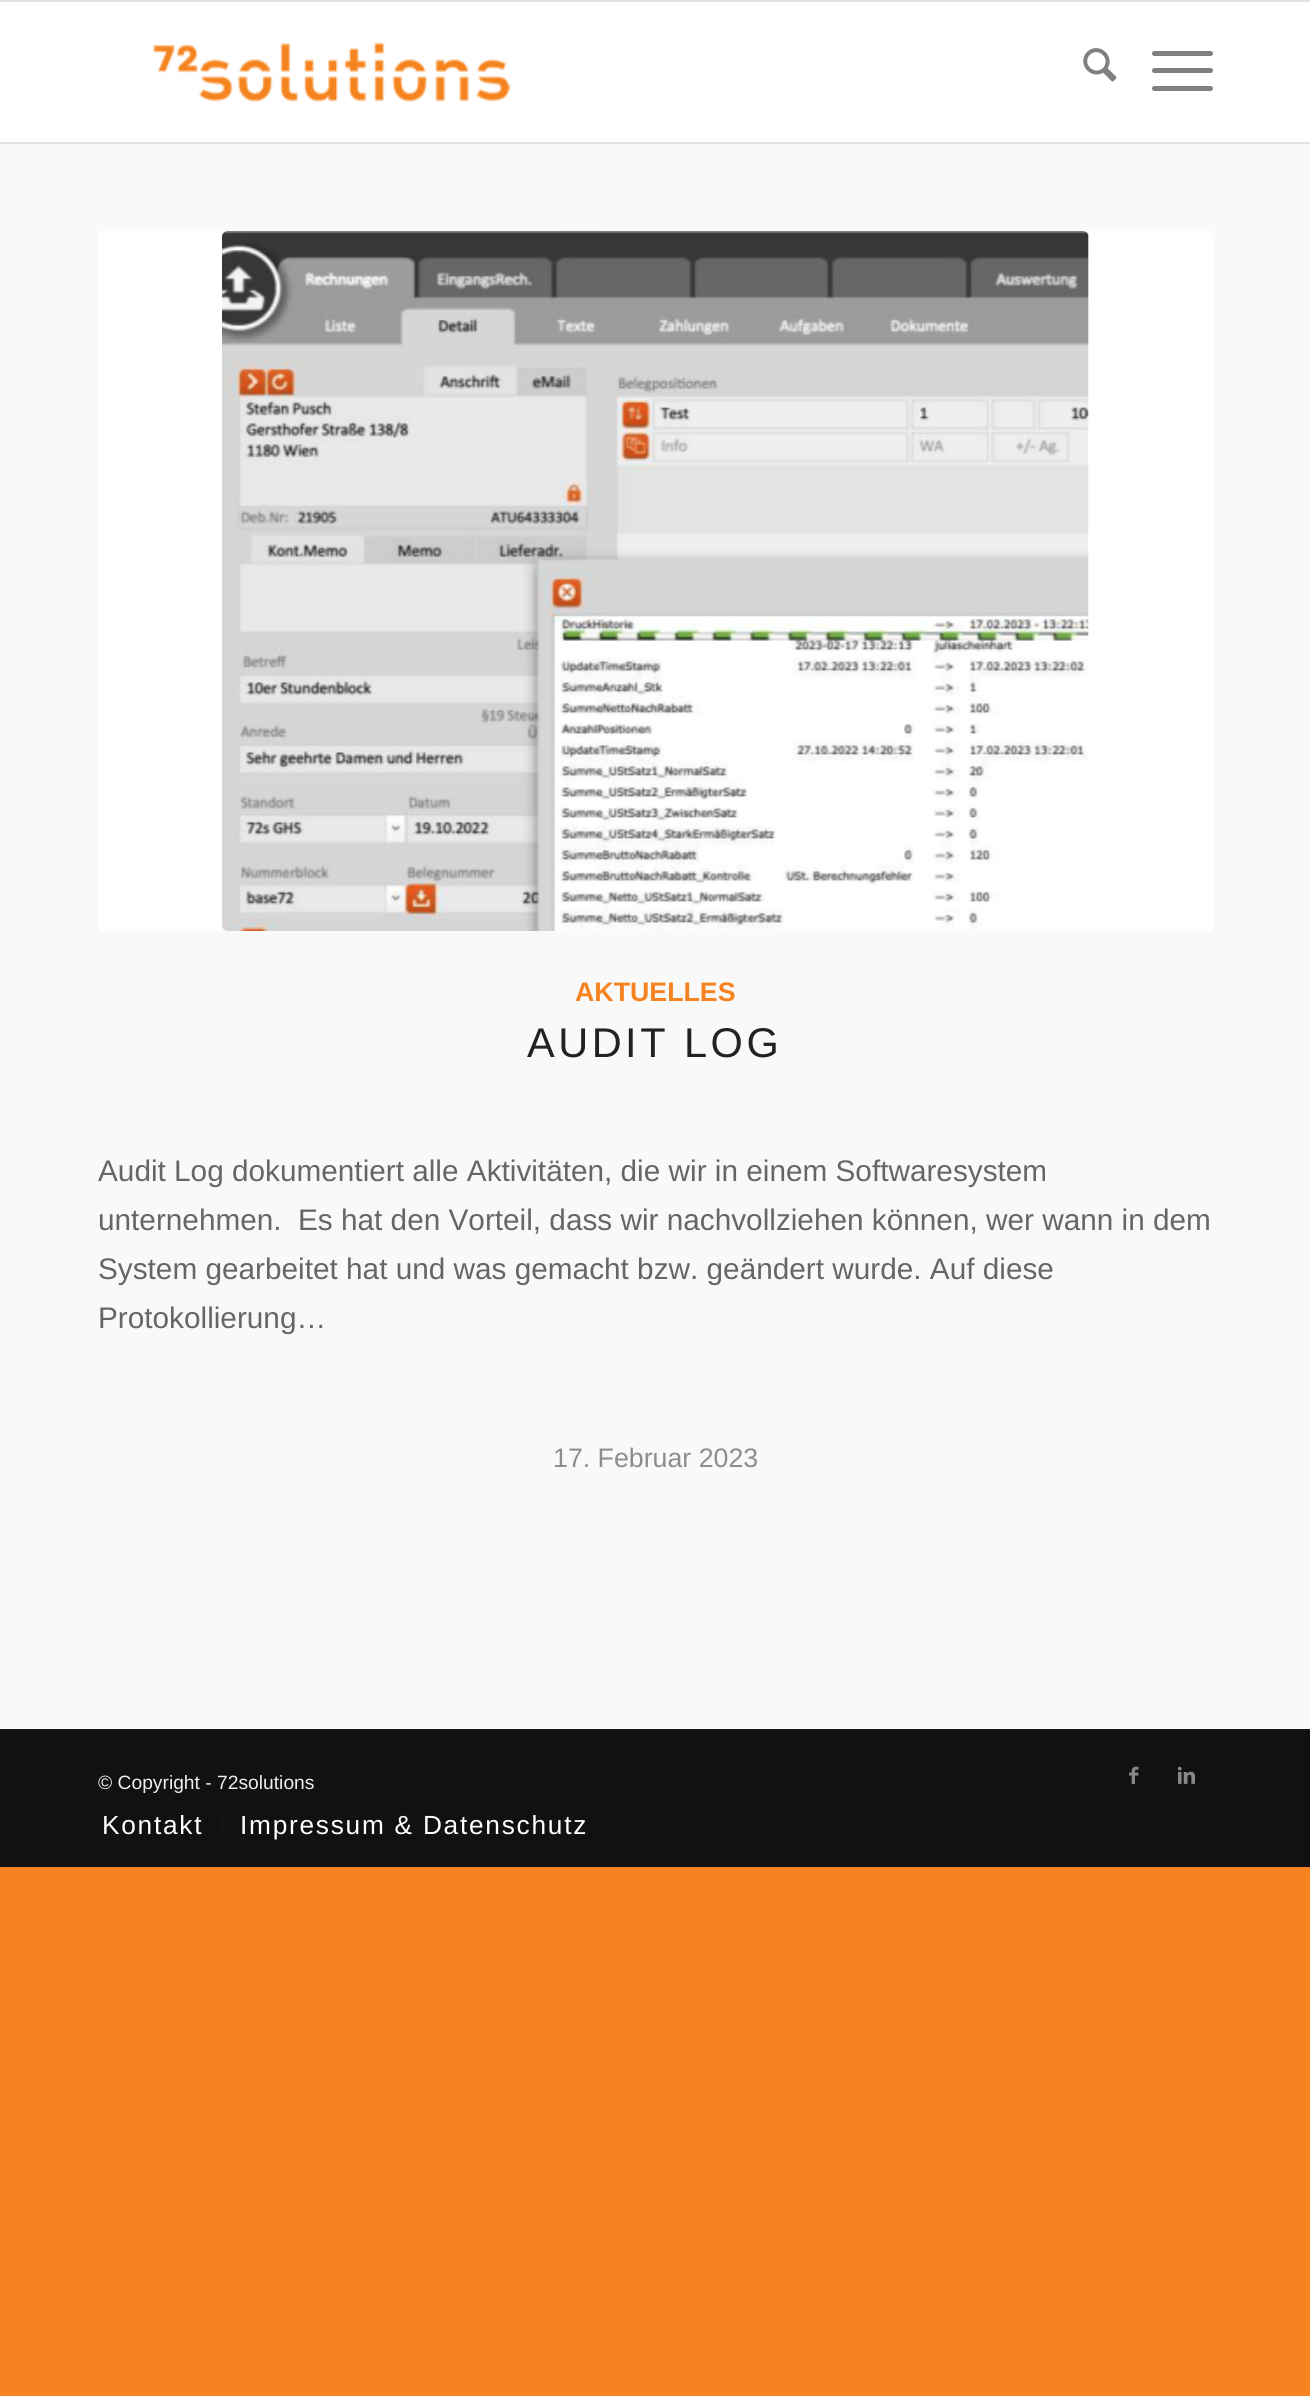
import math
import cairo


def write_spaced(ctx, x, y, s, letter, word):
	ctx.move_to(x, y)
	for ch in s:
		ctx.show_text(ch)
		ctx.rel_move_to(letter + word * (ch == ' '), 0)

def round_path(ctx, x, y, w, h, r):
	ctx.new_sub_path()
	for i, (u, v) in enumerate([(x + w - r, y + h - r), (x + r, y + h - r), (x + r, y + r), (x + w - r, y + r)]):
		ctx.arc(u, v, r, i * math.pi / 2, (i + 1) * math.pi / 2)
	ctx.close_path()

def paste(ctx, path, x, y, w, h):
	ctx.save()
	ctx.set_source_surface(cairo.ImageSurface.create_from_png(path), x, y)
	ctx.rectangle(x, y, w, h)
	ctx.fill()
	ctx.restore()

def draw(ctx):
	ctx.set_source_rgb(0.961, 0.514, 0.122)
	ctx.paint()
	ctx.set_source_rgb(0.882, 0.882, 0.882)
	ctx.rectangle(0, 0, 1310, 2)
	ctx.rectangle(0, 142, 1310, 2)
	ctx.fill()
	ctx.set_source_rgb(1, 1, 1)
	ctx.rectangle(0, 2, 1310, 140)
	ctx.fill()
	paste(ctx, 'media/1.png', 152, 42, 359, 60)
	paste(ctx, 'media/2.png', 1083, 48, 34, 34)
	ctx.set_source_rgb(0.502, 0.502, 0.502)
	round_path(ctx, 1152, 68, 61, 5, 2.5)
	ctx.fill()
	round_path(ctx, 1152, 51, 61, 5, 2.5)
	ctx.fill()
	round_path(ctx, 1152, 86, 61, 5, 2.5)
	ctx.fill()
	ctx.set_source_rgb(0.973, 0.973, 0.973)
	ctx.rectangle(0, 144, 1310, 1585)
	ctx.fill()
	ctx.set_source_rgb(1, 1, 1)
	round_path(ctx, 98, 231, 1115, 700, 5)
	ctx.fill()
	paste(ctx, 'media/3.png', 222, 231, 867, 700)
	ctx.select_font_face('Liberation Sans', cairo.FONT_SLANT_NORMAL, cairo.FONT_WEIGHT_BOLD)
	ctx.set_font_size(26.75)
	ctx.set_source_rgb(0.961, 0.514, 0.122)
	ctx.move_to(575, 1001)
	ctx.show_text('AKTUELLES')
	ctx.select_font_face('Liberation Sans')
	ctx.set_font_size(41.5)
	ctx.set_source_rgb(0.133, 0.133, 0.133)
	write_spaced(ctx, 527, 1057, 'AUDIT LOG', 3.5, 0)
	ctx.set_font_size(29.75)
	ctx.set_source_rgb(0.4, 0.4, 0.4)
	for x, y, s in [
		(98, 1181, 'Audit Log dokumentiert alle Aktivitäten, die wir in einem Softwaresystem'),
		(98, 1230, 'unternehmen.'),
		(298, 1230, 'Es hat den Vorteil, dass wir nachvollziehen können, wer wann in dem'),
		(98, 1279, 'System gearbeitet hat und was gemacht bzw. geändert wurde. Auf diese'),
		(98, 1328, 'Protokollierung…'),
	]:
		ctx.move_to(x, y)
		ctx.show_text(s)
	ctx.set_font_size(26.75)
	ctx.set_source_rgb(0.553, 0.553, 0.553)
	ctx.move_to(553, 1467)
	ctx.show_text('17. Februar 2023')
	ctx.set_source_rgb(0.067, 0.067, 0.067)
	ctx.rectangle(0, 1731, 1310, 136)
	ctx.fill()
	ctx.set_source_rgb(0.086, 0.086, 0.086)
	ctx.rectangle(0, 1729, 1310, 2)
	ctx.fill()
	ctx.set_font_size(19.25)
	ctx.set_source_rgb(0.933, 0.933, 0.933)
	ctx.move_to(98, 1789)
	ctx.show_text('© Copyright - 72solutions')
	paste(ctx, 'media/4.png', 1129, 1766, 10, 19)
	paste(ctx, 'media/5.png', 1178, 1766, 17, 18)
	ctx.set_font_size(26.25)
	ctx.set_source_rgb(1, 1, 1)
	write_spaced(ctx, 102, 1834, 'Kontakt', 1.75, 0)
	ctx.set_source_rgb(0.086, 0.086, 0.086)
	ctx.rectangle(221, 1817, 2, 19)
	ctx.fill()
	ctx.set_source_rgb(1, 1, 1)
	write_spaced(ctx, 240, 1834, 'Impressum & Datenschutz', 1.75, 0)


surface = cairo.ImageSurface(cairo.FORMAT_RGB24, 1310, 2396)
ctx = cairo.Context(surface)
options = cairo.FontOptions()
options.set_hint_metrics(cairo.HINT_METRICS_OFF)
options.set_hint_style(cairo.HINT_STYLE_NONE)
ctx.set_font_options(options)
ctx.set_miter_limit(4)
draw(ctx)
surface.write_to_png('image.png')
